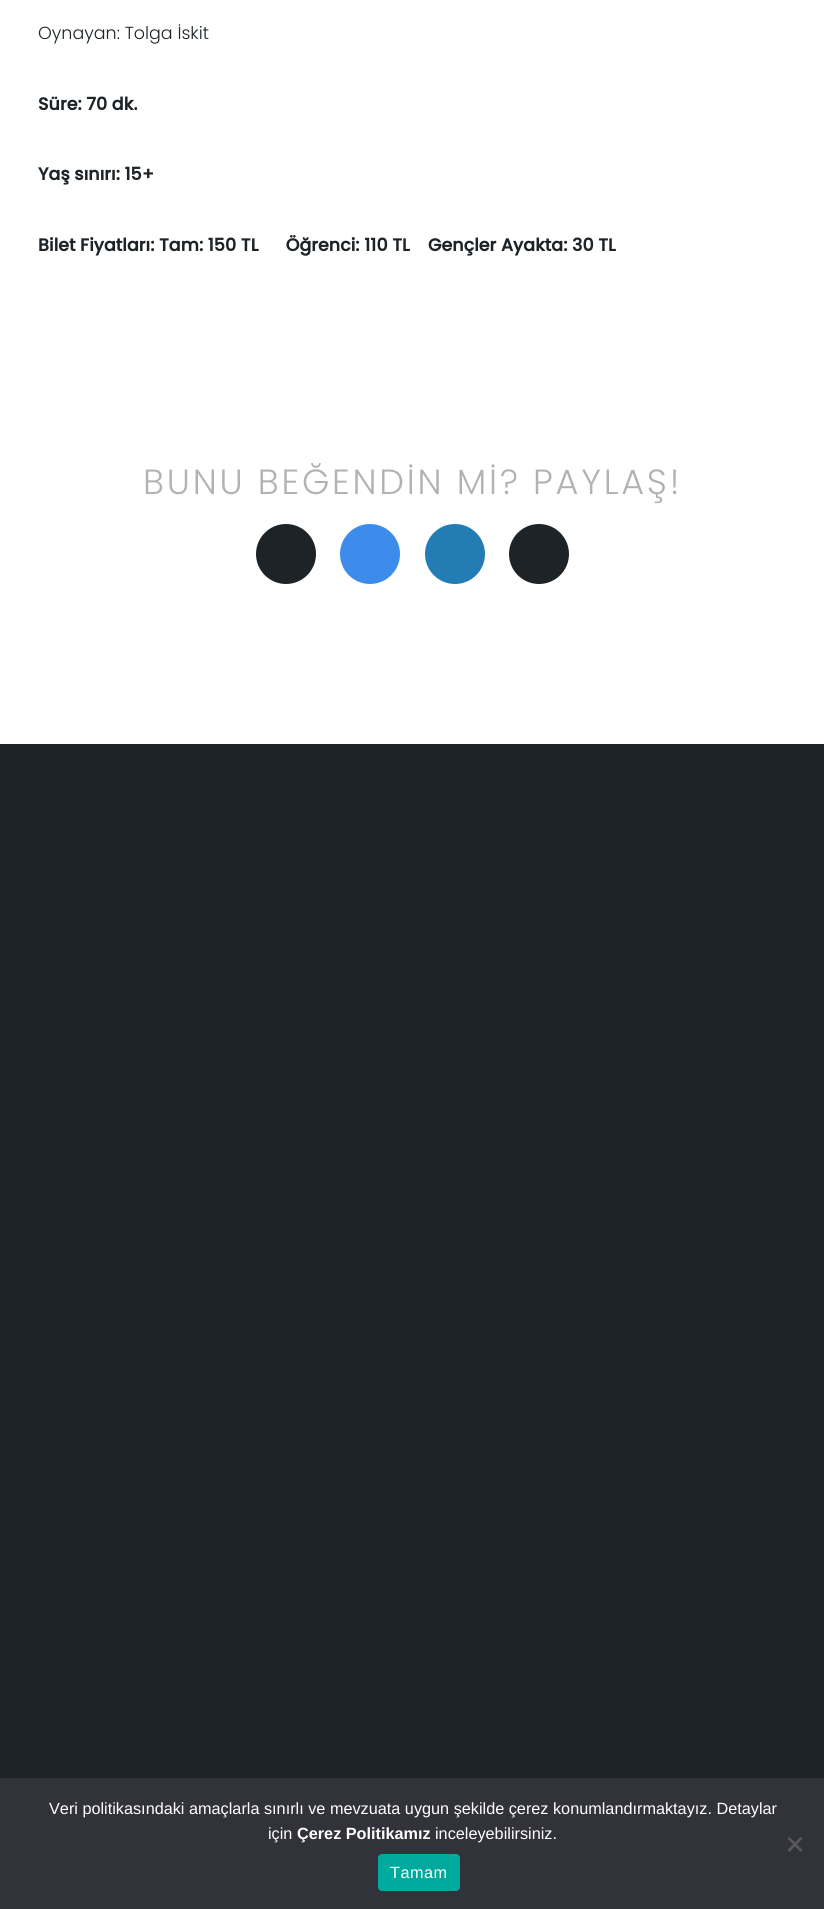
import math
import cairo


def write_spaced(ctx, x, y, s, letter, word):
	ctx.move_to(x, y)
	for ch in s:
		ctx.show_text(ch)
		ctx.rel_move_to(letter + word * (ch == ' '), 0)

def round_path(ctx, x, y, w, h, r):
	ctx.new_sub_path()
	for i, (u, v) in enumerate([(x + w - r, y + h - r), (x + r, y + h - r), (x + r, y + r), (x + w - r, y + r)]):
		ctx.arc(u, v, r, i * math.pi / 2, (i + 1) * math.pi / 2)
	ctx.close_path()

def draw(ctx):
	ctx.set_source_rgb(1, 1, 1)
	ctx.paint()
	ctx.select_font_face('Poppins Light')
	ctx.set_font_size(17.5)
	ctx.set_source_rgb(0.114, 0.137, 0.153)
	ctx.move_to(38, 39)
	ctx.show_text('Oynayan: Tolga İskit')
	ctx.select_font_face('Poppins', cairo.FONT_SLANT_NORMAL, cairo.FONT_WEIGHT_BOLD)
	for x, y, s in [
		(38, 110, 'Süre: 70 dk.'),
		(38, 180, 'Yaş sınırı: 15+'),
		(38, 251, 'Bilet Fiyatları: Tam: 150 TL      Öğrenci: 110 TL    Gençler Ayakta: 30 TL'),
	]:
		ctx.move_to(x, y)
		ctx.show_text(s)
	ctx.select_font_face('Poppins Light')
	ctx.set_font_size(35)
	ctx.set_source_rgb(0.69, 0.698, 0.702)
	write_spaced(ctx, 143, 494, 'BUNU BEĞENDİN Mİ? PAYLAŞ!', 2.8, 0)
	ctx.set_source_rgb(0.114, 0.137, 0.153)
	ctx.new_path()
	ctx.arc(286, 554, 30, 0, 2 * math.pi)
	ctx.fill()
	ctx.set_source_rgb(0.239, 0.549, 0.918)
	ctx.arc(370, 554, 30, 0, 2 * math.pi)
	ctx.fill()
	ctx.set_source_rgb(0.137, 0.486, 0.706)
	ctx.arc(455, 554, 30, 0, 2 * math.pi)
	ctx.fill()
	ctx.set_source_rgb(0.114, 0.137, 0.153)
	ctx.arc(539, 554, 30, 0, 2 * math.pi)
	ctx.fill()
	ctx.rectangle(0, 744, 824, 1034)
	ctx.fill()
	ctx.set_source_rgb(0.196, 0.196, 0.227)
	ctx.rectangle(0, 1778, 824, 131)
	ctx.fill()
	ctx.select_font_face('Liberation Sans')
	ctx.set_font_size(16.25)
	ctx.set_source_rgb(1, 1, 1)
	ctx.move_to(49, 1814)
	ctx.show_text('Veri politikasındaki amaçlarla sınırlı ve mevzuata uygun şekilde çerez konumlandırmaktayız. Detaylar')
	ctx.move_to(268, 1839)
	ctx.show_text('için')
	ctx.select_font_face('Liberation Sans', cairo.FONT_SLANT_NORMAL, cairo.FONT_WEIGHT_BOLD)
	ctx.move_to(297, 1839)
	ctx.show_text('Çerez Politikamız')
	ctx.select_font_face('Liberation Sans')
	ctx.move_to(435, 1839)
	ctx.show_text('inceleyebilirsiniz.')
	ctx.set_source_rgb(0.349, 0.349, 0.365)
	ctx.new_path()
	ctx.move_to(800.5, 1837)
	ctx.line_to(802.5, 1838.5)
	ctx.line_to(789.5, 1852)
	ctx.line_to(787.5, 1850)
	ctx.close_path()
	ctx.fill()
	ctx.new_path()
	ctx.move_to(787.5, 1838.5)
	ctx.line_to(789.5, 1837)
	ctx.line_to(802.5, 1850)
	ctx.line_to(800.5, 1852)
	ctx.close_path()
	ctx.fill()
	ctx.set_source_rgb(0, 0.663, 0.616)
	round_path(ctx, 378, 1854, 82, 37, 4)
	ctx.fill()
	ctx.set_source_rgb(1, 1, 1)
	write_spaced(ctx, 390, 1878, 'Tamam', 0.5, 0)


surface = cairo.ImageSurface(cairo.FORMAT_RGB24, 824, 1909)
ctx = cairo.Context(surface)
options = cairo.FontOptions()
options.set_hint_metrics(cairo.HINT_METRICS_OFF)
options.set_hint_style(cairo.HINT_STYLE_NONE)
ctx.set_font_options(options)
ctx.set_miter_limit(4)
draw(ctx)
surface.write_to_png('image.png')
